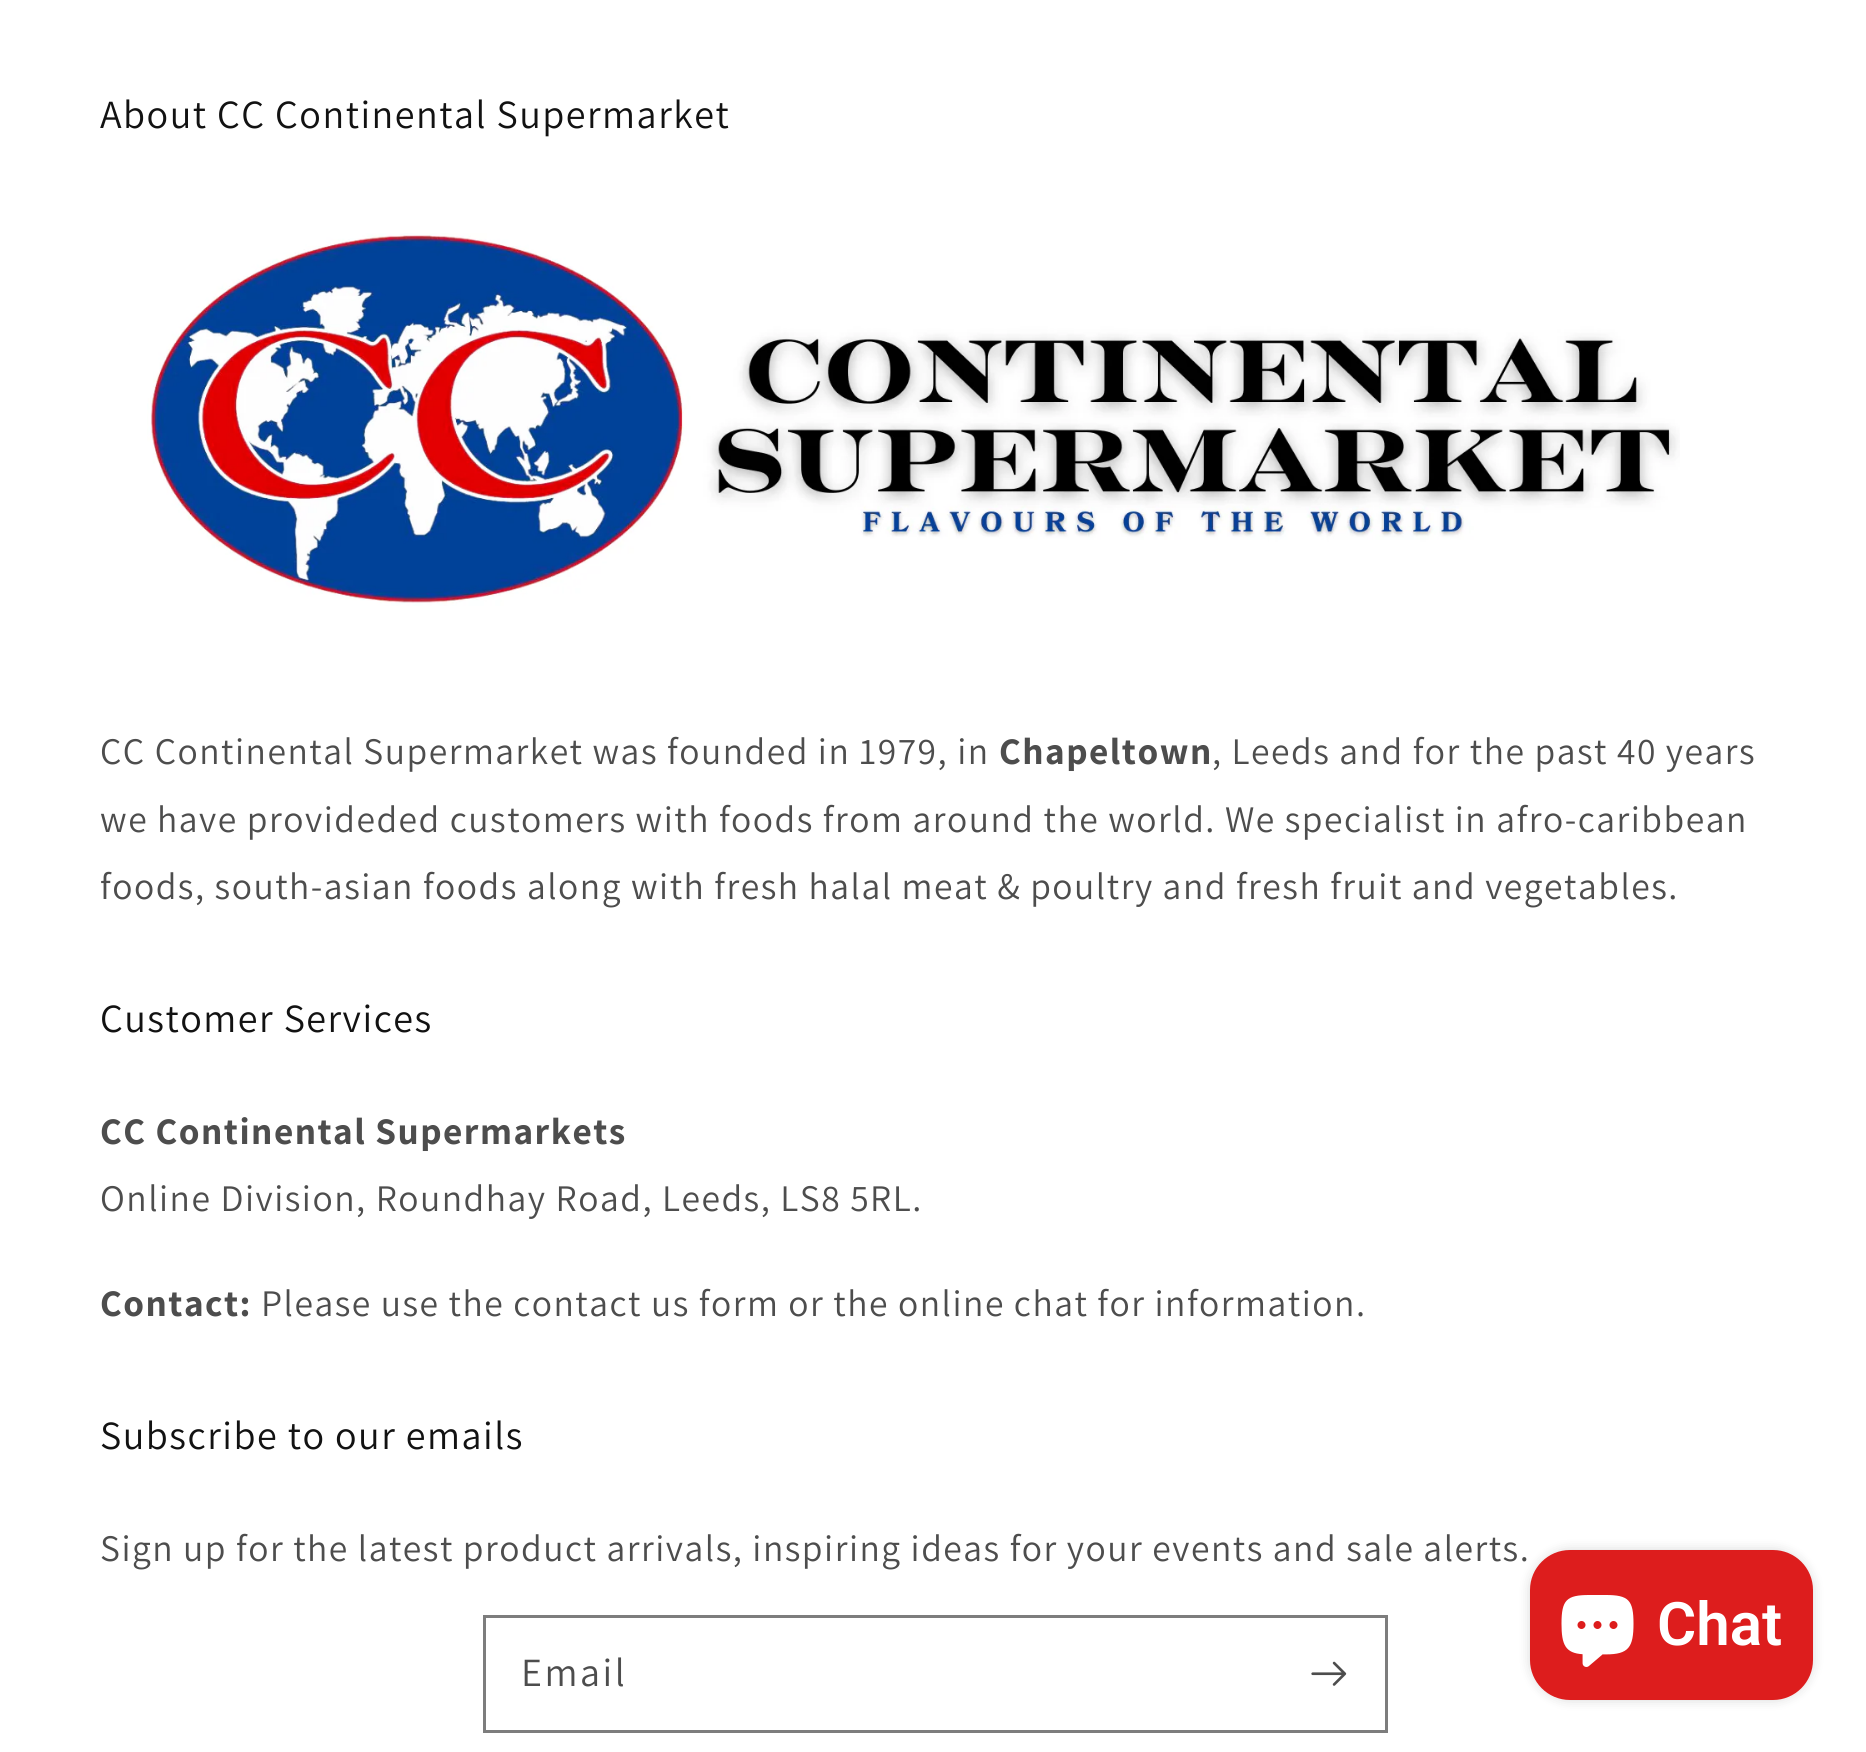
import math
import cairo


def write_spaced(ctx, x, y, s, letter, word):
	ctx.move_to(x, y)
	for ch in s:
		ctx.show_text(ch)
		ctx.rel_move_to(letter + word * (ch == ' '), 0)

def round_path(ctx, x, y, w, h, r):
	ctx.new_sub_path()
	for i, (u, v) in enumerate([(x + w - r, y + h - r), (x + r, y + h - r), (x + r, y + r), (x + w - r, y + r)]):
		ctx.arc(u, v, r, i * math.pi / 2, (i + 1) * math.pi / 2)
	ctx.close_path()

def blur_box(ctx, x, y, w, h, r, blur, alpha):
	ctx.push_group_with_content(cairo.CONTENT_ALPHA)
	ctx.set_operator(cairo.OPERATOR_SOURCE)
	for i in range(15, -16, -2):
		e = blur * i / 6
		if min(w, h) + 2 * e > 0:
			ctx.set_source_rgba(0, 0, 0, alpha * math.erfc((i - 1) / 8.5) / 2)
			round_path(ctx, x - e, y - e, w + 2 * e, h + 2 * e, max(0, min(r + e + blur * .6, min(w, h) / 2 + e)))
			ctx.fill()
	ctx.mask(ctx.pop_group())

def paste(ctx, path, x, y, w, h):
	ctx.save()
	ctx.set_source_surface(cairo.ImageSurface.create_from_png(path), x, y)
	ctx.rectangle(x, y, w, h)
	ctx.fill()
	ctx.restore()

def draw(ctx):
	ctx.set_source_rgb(1, 1, 1)
	ctx.paint()
	ctx.select_font_face('Assistant')
	ctx.set_font_size(40)
	ctx.set_source_rgb(0.071, 0.071, 0.071)
	write_spaced(ctx, 100, 128, 'About CC Continental Supermarket', 1.5, 0)
	paste(ctx, 'media/1.png', 147, 233, 1533, 373)
	ctx.set_font_size(37.5)
	ctx.set_source_rgb(0.302, 0.302, 0.302)
	write_spaced(ctx, 100, 764, 'CC Continental Supermarket was founded in 1979, in', 1.5, 0)
	ctx.select_font_face('Assistant', cairo.FONT_SLANT_NORMAL, cairo.FONT_WEIGHT_BOLD)
	write_spaced(ctx, 999, 764, 'Chapeltown', 1.5, 0)
	ctx.select_font_face('Assistant')
	for x, y, s in [
		(1212, 764, ', Leeds and for the past 40 years'),
		(100, 832, 'we have provideded customers with foods from around the world. We specialist in afro-caribbean'),
		(100, 899, 'foods, south-asian foods along with fresh halal meat & poultry and fresh fruit and vegetables.'),
	]:
		write_spaced(ctx, x, y, s, 1.5, 0)
	ctx.set_font_size(40)
	ctx.set_source_rgb(0.071, 0.071, 0.071)
	write_spaced(ctx, 100, 1032, 'Customer Services', 1.5, 0)
	ctx.select_font_face('Assistant', cairo.FONT_SLANT_NORMAL, cairo.FONT_WEIGHT_BOLD)
	ctx.set_font_size(37.5)
	ctx.set_source_rgb(0.302, 0.302, 0.302)
	write_spaced(ctx, 100, 1144, 'CC Continental Supermarkets', 1.5, 0)
	ctx.select_font_face('Assistant')
	write_spaced(ctx, 100, 1211, 'Online Division, Roundhay Road, Leeds, LS8 5RL.', 1.5, 0)
	ctx.select_font_face('Assistant', cairo.FONT_SLANT_NORMAL, cairo.FONT_WEIGHT_BOLD)
	write_spaced(ctx, 100, 1316, 'Contact:', 1.5, 0)
	ctx.select_font_face('Assistant')
	write_spaced(ctx, 261, 1316, 'Please use the contact us form or the online chat for information.', 1.5, 0)
	ctx.set_font_size(40)
	ctx.set_source_rgb(0.071, 0.071, 0.071)
	write_spaced(ctx, 100, 1449, 'Subscribe to our emails', 1.5, 0)
	ctx.set_font_size(37.5)
	ctx.set_source_rgb(0.302, 0.302, 0.302)
	write_spaced(ctx, 100, 1561, 'Sign up for the latest product arrivals, inspiring ideas for your events and sale alerts.', 1.5, 0)
	ctx.rectangle(484.5, 1616.5, 902, 115)
	ctx.set_source_rgb(0.49, 0.49, 0.49)
	ctx.set_line_width(3)
	ctx.stroke()
	ctx.set_font_size(40)
	ctx.set_source_rgb(0.302, 0.302, 0.302)
	write_spaced(ctx, 521, 1686, 'Email', 2.5, 0)
	paste(ctx, 'media/2.png', 1311, 1661, 36, 25)
	ctx.set_source_rgb(0, 0, 0)
	blur_box(ctx, 1530, 1550, 283, 150, 40, 6, 0.15)
	ctx.set_source_rgb(0.867, 0.114, 0.114)
	round_path(ctx, 1530, 1550, 283, 150, 40)
	ctx.fill()
	paste(ctx, 'media/3.png', 1561, 1595, 73, 72)
	ctx.select_font_face('Roboto SemiBold')
	ctx.set_font_size(60)
	ctx.set_source_rgb(1, 1, 1)
	ctx.move_to(1657, 1645)
	ctx.show_text('Chat')


surface = cairo.ImageSurface(cairo.FORMAT_RGB24, 1866, 1752)
ctx = cairo.Context(surface)
options = cairo.FontOptions()
options.set_hint_metrics(cairo.HINT_METRICS_OFF)
options.set_hint_style(cairo.HINT_STYLE_NONE)
ctx.set_font_options(options)
ctx.set_miter_limit(4)
draw(ctx)
surface.write_to_png('image.png')
